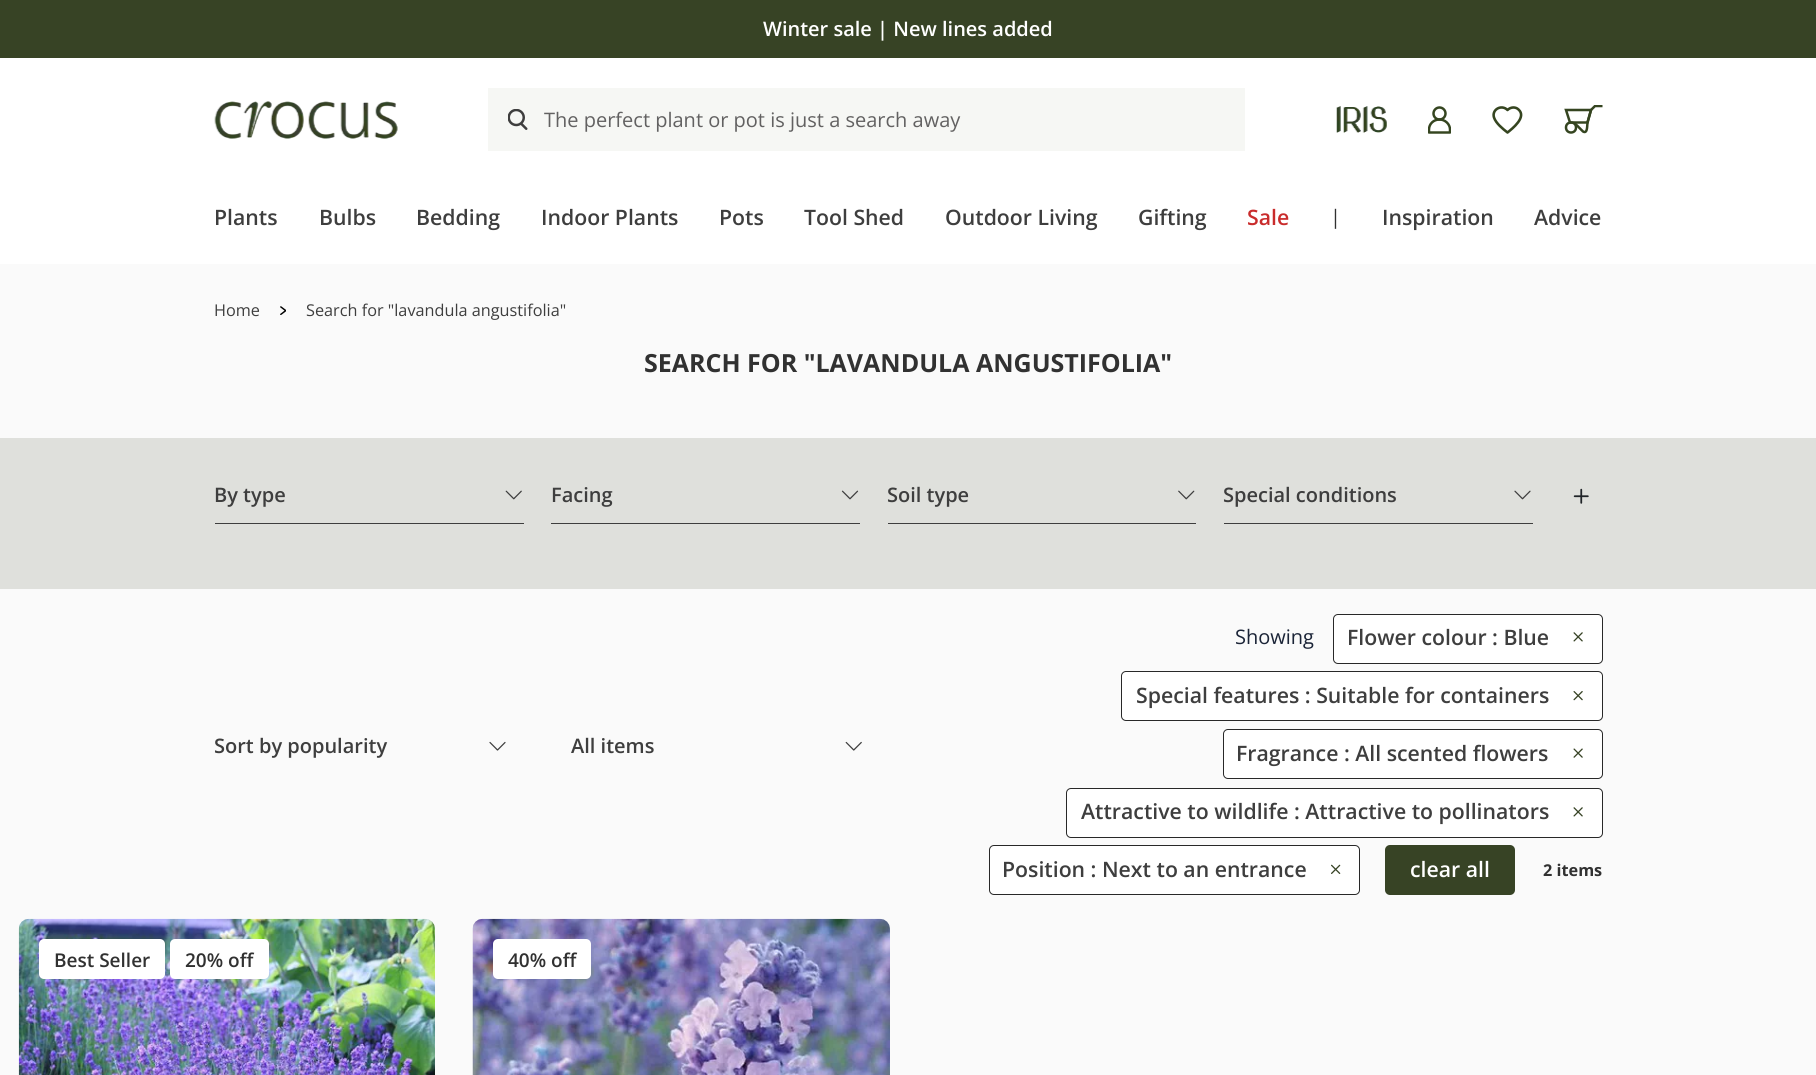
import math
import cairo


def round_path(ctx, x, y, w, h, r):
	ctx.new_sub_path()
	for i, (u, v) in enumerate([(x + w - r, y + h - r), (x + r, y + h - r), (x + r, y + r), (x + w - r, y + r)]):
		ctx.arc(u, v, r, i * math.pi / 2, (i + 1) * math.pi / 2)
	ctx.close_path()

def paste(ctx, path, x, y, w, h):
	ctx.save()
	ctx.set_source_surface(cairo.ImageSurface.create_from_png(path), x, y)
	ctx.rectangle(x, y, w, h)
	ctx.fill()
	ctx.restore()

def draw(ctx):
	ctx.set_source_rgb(0.98, 0.98, 0.98)
	ctx.paint()
	ctx.set_source_rgb(1, 1, 1)
	ctx.rectangle(0, 58, 1816, 206)
	ctx.fill()
	ctx.set_source_rgb(0.216, 0.263, 0.145)
	ctx.rectangle(0, 0, 1816, 58)
	ctx.fill()
	ctx.select_font_face('Open Sans SemiBold')
	ctx.set_font_size(20)
	ctx.set_source_rgb(1, 1, 1)
	ctx.move_to(763, 36)
	ctx.show_text('Winter sale | New lines added')
	paste(ctx, 'media/1.png', 214, 101, 184, 38)
	ctx.set_source_rgb(0.961, 0.965, 0.957)
	ctx.rectangle(488, 88, 757, 63)
	ctx.fill()
	paste(ctx, 'media/2.png', 508, 109, 20, 21)
	ctx.select_font_face('Open Sans')
	ctx.set_source_rgb(0.384, 0.38, 0.38)
	ctx.move_to(544, 127)
	ctx.show_text('The perfect plant or pot is just a search away')
	paste(ctx, 'media/3.png', 1336, 106, 51, 27)
	ctx.save()
	ctx.rectangle(1428, 106, 23, 28)
	ctx.clip()
	ctx.new_path()
	ctx.move_to(1439.5, 119.5)
	ctx.curve_to(1445, 119.5, 1450, 124, 1450, 129.5)
	ctx.line_to(1450, 132.5)
	ctx.line_to(1429, 132.5)
	ctx.line_to(1429, 129.5)
	ctx.curve_to(1429, 124, 1433.5, 119.5, 1439.5, 119.5)
	ctx.close_path()
	ctx.set_source_rgb(0.208, 0.271, 0.125)
	ctx.set_line_width(2.5)
	ctx.set_line_cap(cairo.LINE_CAP_ROUND)
	ctx.set_line_join(cairo.LINE_JOIN_ROUND)
	ctx.stroke()
	ctx.restore()
	ctx.arc(1439.5, 113.5, 6, 0, 2 * math.pi)
	ctx.set_source_rgb(0.208, 0.271, 0.125)
	ctx.set_line_width(2.5)
	ctx.stroke()
	ctx.new_path()
	ctx.move_to(1518.5, 109.5)
	ctx.curve_to(1515.5, 106.5, 1510.5, 107, 1507.5, 110)
	ctx.curve_to(1501.5, 104, 1491.5, 109.5, 1494, 117.5)
	ctx.curve_to(1496, 123.5, 1503, 129, 1507.5, 132.5)
	ctx.curve_to(1512.5, 128.5, 1527, 117, 1518.5, 109.5)
	ctx.close_path()
	ctx.set_line_width(2.6)
	ctx.set_line_cap(cairo.LINE_CAP_ROUND)
	ctx.set_line_join(cairo.LINE_JOIN_ROUND)
	ctx.stroke()
	ctx.new_path()
	ctx.move_to(1587.5, 122.5)
	ctx.line_to(1570, 122.5)
	ctx.line_to(1566, 110)
	ctx.line_to(1591, 110)
	ctx.close_path()
	ctx.set_line_width(2.5)
	ctx.set_line_cap(cairo.LINE_CAP_BUTT)
	ctx.set_line_join(cairo.LINE_JOIN_MITER)
	ctx.stroke()
	ctx.save()
	ctx.rectangle(1564, 105, 39, 29)
	ctx.clip()
	ctx.new_path()
	ctx.move_to(1574, 122.5)
	ctx.line_to(1583, 131.5)
	ctx.curve_to(1588, 134.5, 1587, 124, 1587.5, 122.5)
	ctx.line_to(1591, 110)
	ctx.line_to(1595, 106)
	ctx.line_to(1602.5, 106)
	ctx.stroke()
	ctx.restore()
	ctx.arc(1571, 127.5, 5, 0, 2 * math.pi)
	ctx.stroke()
	ctx.select_font_face('Open Sans SemiBold')
	ctx.set_font_size(21.25)
	ctx.set_source_rgb(0.243, 0.243, 0.243)
	for x, y, s in [
		(214, 225, 'Plants'),
		(319, 225, 'Bulbs'),
		(416, 225, 'Bedding'),
		(541, 225, 'Indoor Plants'),
		(719, 225, 'Pots'),
		(804, 225, 'Tool Shed'),
		(945, 225, 'Outdoor Living'),
		(1138, 225, 'Gifting'),
	]:
		ctx.move_to(x, y)
		ctx.show_text(s)
	ctx.set_source_rgb(0.788, 0.173, 0.173)
	ctx.move_to(1247, 225)
	ctx.show_text('Sale')
	ctx.select_font_face('Open Sans')
	ctx.set_font_size(20)
	ctx.set_source_rgb(0.192, 0.192, 0.192)
	ctx.move_to(1330, 224)
	ctx.show_text('|')
	ctx.select_font_face('Open Sans SemiBold')
	ctx.set_font_size(21.25)
	ctx.set_source_rgb(0.243, 0.243, 0.243)
	ctx.move_to(1382, 225)
	ctx.show_text('Inspiration')
	ctx.move_to(1534, 225)
	ctx.show_text('Advice')
	ctx.select_font_face('Open Sans')
	ctx.set_font_size(16.25)
	ctx.move_to(214, 316)
	ctx.show_text('Home')
	paste(ctx, 'media/4.png', 280, 306, 6, 9)
	ctx.move_to(306, 316)
	ctx.show_text('Search for "lavandula angustifolia"')
	ctx.select_font_face('Open Sans', cairo.FONT_SLANT_NORMAL, cairo.FONT_WEIGHT_BOLD)
	ctx.set_font_size(25)
	ctx.set_source_rgb(0.192, 0.192, 0.192)
	ctx.move_to(644, 372)
	ctx.show_text('SEARCH FOR "LAVANDULA ANGUSTIFOLIA"')
	ctx.set_source_rgb(0.875, 0.878, 0.863)
	ctx.rectangle(0, 438, 1816, 151)
	ctx.fill()
	ctx.set_source_rgb(0.243, 0.243, 0.243)
	ctx.rectangle(215, 523, 309, 1)
	ctx.fill()
	ctx.select_font_face('Open Sans SemiBold')
	ctx.set_font_size(20)
	ctx.move_to(214, 502)
	ctx.show_text('By type')
	paste(ctx, 'media/5.png', 505, 490, 17, 10)
	ctx.rectangle(551, 523, 309, 1)
	ctx.fill()
	ctx.move_to(551, 502)
	ctx.show_text('Facing')
	paste(ctx, 'media/6.png', 841, 490, 18, 10)
	ctx.rectangle(888, 523, 308, 1)
	ctx.fill()
	ctx.move_to(887, 502)
	ctx.show_text('Soil type')
	paste(ctx, 'media/7.png', 1178, 490, 17, 10)
	ctx.rectangle(1224, 523, 309, 1)
	ctx.fill()
	ctx.move_to(1223, 502)
	ctx.show_text('Special conditions')
	paste(ctx, 'media/8.png', 1514, 490, 17, 10)
	paste(ctx, 'media/9.png', 1573, 488, 16, 16)
	ctx.move_to(214, 753)
	ctx.show_text('Sort by popularity')
	paste(ctx, 'media/10.png', 489, 741, 17, 10)
	ctx.move_to(571, 753)
	ctx.show_text('All items')
	paste(ctx, 'media/11.png', 845, 741, 17, 10)
	ctx.select_font_face('Open Sans')
	ctx.set_source_rgb(0.106, 0.141, 0.216)
	ctx.move_to(1235, 644)
	ctx.show_text('Showing')
	ctx.set_source_rgb(1, 1, 1)
	round_path(ctx, 1333.5, 614.5, 269, 49, 4.5)
	ctx.fill_preserve()
	ctx.set_source_rgb(0.157, 0.157, 0.157)
	ctx.set_line_width(1)
	ctx.stroke()
	ctx.select_font_face('Open Sans SemiBold')
	ctx.set_font_size(21.25)
	ctx.set_source_rgb(0.243, 0.243, 0.243)
	ctx.move_to(1347, 645)
	ctx.show_text('Flower colour : Blue')
	paste(ctx, 'media/12.png', 1573, 632, 10, 10)
	ctx.set_source_rgb(1, 1, 1)
	round_path(ctx, 1121.5, 671.5, 481, 49, 4.5)
	ctx.fill_preserve()
	ctx.set_source_rgb(0.157, 0.157, 0.157)
	ctx.stroke()
	ctx.set_source_rgb(0.243, 0.243, 0.243)
	ctx.move_to(1136, 703)
	ctx.show_text('Special features : Suitable for containers')
	paste(ctx, 'media/13.png', 1573, 691, 10, 10)
	ctx.set_source_rgb(1, 1, 1)
	round_path(ctx, 1223.5, 729.5, 379, 49, 4.5)
	ctx.fill_preserve()
	ctx.set_source_rgb(0.157, 0.157, 0.157)
	ctx.stroke()
	ctx.set_source_rgb(0.243, 0.243, 0.243)
	ctx.move_to(1236, 761)
	ctx.show_text('Fragrance : All scented flowers')
	paste(ctx, 'media/14.png', 1573, 748, 10, 10)
	ctx.set_source_rgb(1, 1, 1)
	round_path(ctx, 1066.5, 788.5, 536, 49, 4.5)
	ctx.fill_preserve()
	ctx.set_source_rgb(0.157, 0.157, 0.157)
	ctx.stroke()
	ctx.set_source_rgb(0.243, 0.243, 0.243)
	ctx.move_to(1081, 819)
	ctx.show_text('Attractive to wildlife : Attractive to pollinators')
	paste(ctx, 'media/12.png', 1573, 807, 10, 10)
	ctx.set_source_rgb(1, 1, 1)
	round_path(ctx, 989.5, 845.5, 370, 49, 4.5)
	ctx.fill_preserve()
	ctx.set_source_rgb(0.157, 0.157, 0.157)
	ctx.stroke()
	ctx.set_source_rgb(0.243, 0.243, 0.243)
	ctx.move_to(1002, 877)
	ctx.show_text('Position : Next to an entrance')
	paste(ctx, 'media/15.png', 1331, 864, 10, 10)
	ctx.set_source_rgb(0.216, 0.263, 0.145)
	round_path(ctx, 1385, 845, 130, 50, 5)
	ctx.fill()
	ctx.set_source_rgb(1, 1, 1)
	ctx.move_to(1410, 877)
	ctx.show_text('clear all')
	ctx.select_font_face('Open Sans', cairo.FONT_SLANT_NORMAL, cairo.FONT_WEIGHT_BOLD)
	ctx.set_font_size(16.25)
	ctx.set_source_rgb(0.192, 0.192, 0.192)
	ctx.move_to(1543, 876)
	ctx.show_text('2 items')
	paste(ctx, 'media/16.png', 18, 918, 417, 157)
	ctx.set_source_rgb(1, 1, 1)
	round_path(ctx, 39, 939, 126, 40, 5)
	ctx.fill()
	ctx.select_font_face('Open Sans SemiBold')
	ctx.set_font_size(19)
	ctx.set_source_rgb(0.192, 0.192, 0.192)
	ctx.move_to(54, 967)
	ctx.show_text('Best Seller')
	ctx.set_source_rgb(1, 1, 1)
	round_path(ctx, 170, 939, 99, 40, 5)
	ctx.fill()
	ctx.set_source_rgb(0.192, 0.192, 0.192)
	ctx.move_to(185, 967)
	ctx.show_text('20% off')
	paste(ctx, 'media/17.png', 472, 918, 418, 157)
	ctx.set_source_rgb(1, 1, 1)
	round_path(ctx, 493, 939, 98, 40, 5)
	ctx.fill()
	ctx.set_source_rgb(0.192, 0.192, 0.192)
	ctx.move_to(508, 967)
	ctx.show_text('40% off')


surface = cairo.ImageSurface(cairo.FORMAT_RGB24, 1816, 1075)
ctx = cairo.Context(surface)
options = cairo.FontOptions()
options.set_hint_metrics(cairo.HINT_METRICS_OFF)
options.set_hint_style(cairo.HINT_STYLE_NONE)
ctx.set_font_options(options)
ctx.set_miter_limit(4)
draw(ctx)
surface.write_to_png('image.png')
